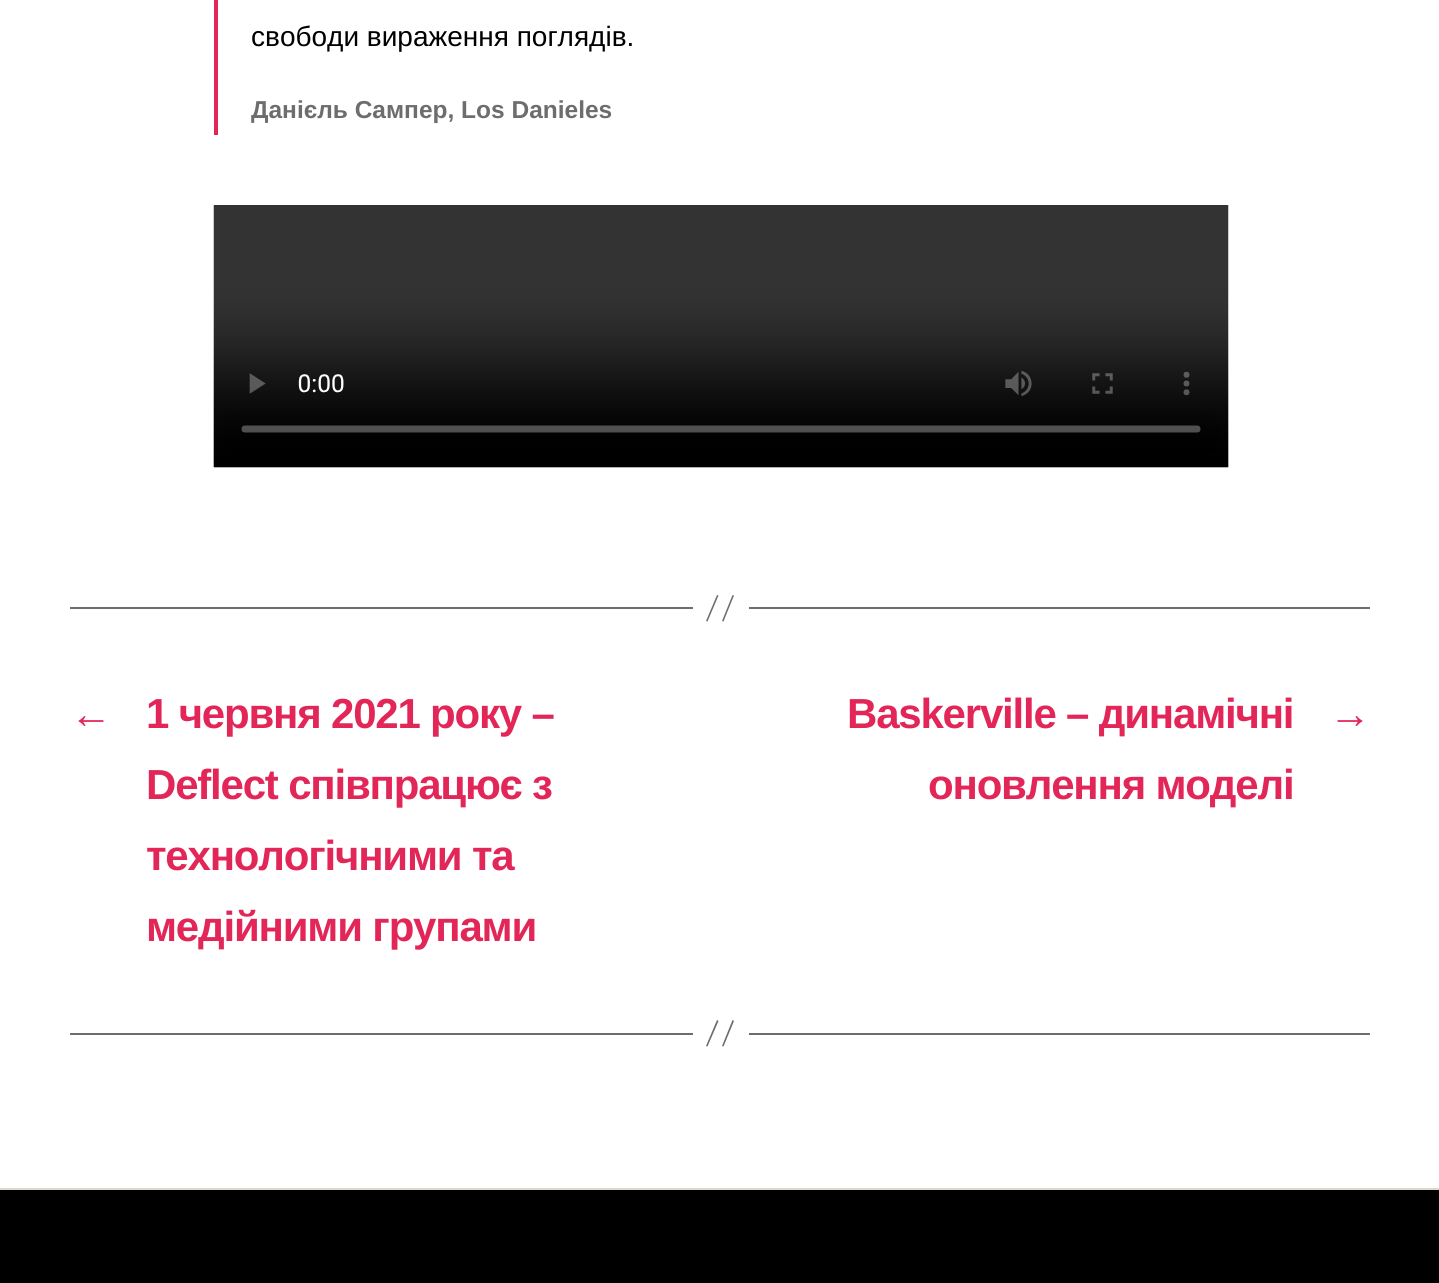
import math
import cairo


def write_spaced(ctx, x, y, s, letter, word):
	ctx.move_to(x, y)
	for ch in s:
		ctx.show_text(ch)
		ctx.rel_move_to(letter + word * (ch == ' '), 0)

def paste(ctx, path, x, y, w, h):
	ctx.save()
	ctx.set_source_surface(cairo.ImageSurface.create_from_png(path), x, y)
	ctx.rectangle(x, y, w, h)
	ctx.fill()
	ctx.restore()

def draw(ctx):
	ctx.set_source_rgb(1, 1, 1)
	ctx.paint()
	ctx.set_source_rgb(0.886, 0.149, 0.345)
	ctx.rectangle(214, 0, 4, 135)
	ctx.fill()
	ctx.select_font_face('Liberation Sans')
	ctx.set_font_size(28)
	ctx.set_source_rgb(0, 0, 0)
	ctx.move_to(251, 46)
	ctx.show_text('свободи вираження поглядів.')
	ctx.select_font_face('Liberation Sans', cairo.FONT_SLANT_NORMAL, cairo.FONT_WEIGHT_BOLD)
	ctx.set_font_size(24.5)
	ctx.set_source_rgb(0.427, 0.427, 0.427)
	ctx.move_to(251, 118)
	ctx.show_text('Данієль Сампер, Los Danieles')
	paste(ctx, 'media/1.png', 213, 205, 1016, 263)
	ctx.rectangle(749, 607, 621, 2)
	ctx.fill()
	ctx.rectangle(70, 607, 623, 2)
	ctx.fill()
	ctx.new_path()
	ctx.move_to(717, 595)
	ctx.line_to(718.5, 595.5)
	ctx.line_to(707.5, 621.5)
	ctx.line_to(706, 621)
	ctx.close_path()
	ctx.move_to(732.5, 595)
	ctx.line_to(734, 595.5)
	ctx.line_to(723.5, 621.5)
	ctx.line_to(722, 621)
	ctx.close_path()
	ctx.fill()
	ctx.set_font_size(42)
	ctx.set_source_rgb(0.886, 0.149, 0.345)
	for x, y, s in [
		(70, 728, '←'),
		(146, 728, '1 червня 2021 року –'),
		(146, 799, 'Deflect співпрацює з'),
		(146, 870, 'технологічними та'),
		(146, 941, 'медійними групами'),
		(847, 728, 'Baskerville – динамічні'),
		(928, 799, 'оновлення моделі'),
		(1329, 728, '→'),
	]:
		write_spaced(ctx, x, y, s, -1.2, 0)
	ctx.set_source_rgb(0.427, 0.427, 0.427)
	ctx.rectangle(749, 1033, 621, 2)
	ctx.fill()
	ctx.rectangle(70, 1033, 623, 2)
	ctx.fill()
	ctx.new_path()
	ctx.move_to(717, 1020)
	ctx.line_to(718.5, 1021)
	ctx.line_to(707.5, 1046.5)
	ctx.line_to(706, 1046)
	ctx.close_path()
	ctx.move_to(732.5, 1020)
	ctx.line_to(734, 1021)
	ctx.line_to(723.5, 1046.5)
	ctx.line_to(722, 1046)
	ctx.close_path()
	ctx.fill()
	ctx.set_source_rgb(0, 0, 0)
	ctx.rectangle(0, 1190, 1439, 93)
	ctx.fill()
	ctx.set_source_rgb(0.863, 0.843, 0.792)
	ctx.rectangle(0, 1188, 1439, 2)
	ctx.fill()


surface = cairo.ImageSurface(cairo.FORMAT_RGB24, 1439, 1283)
ctx = cairo.Context(surface)
options = cairo.FontOptions()
options.set_hint_metrics(cairo.HINT_METRICS_OFF)
options.set_hint_style(cairo.HINT_STYLE_NONE)
ctx.set_font_options(options)
ctx.set_miter_limit(4)
draw(ctx)
surface.write_to_png('image.png')
